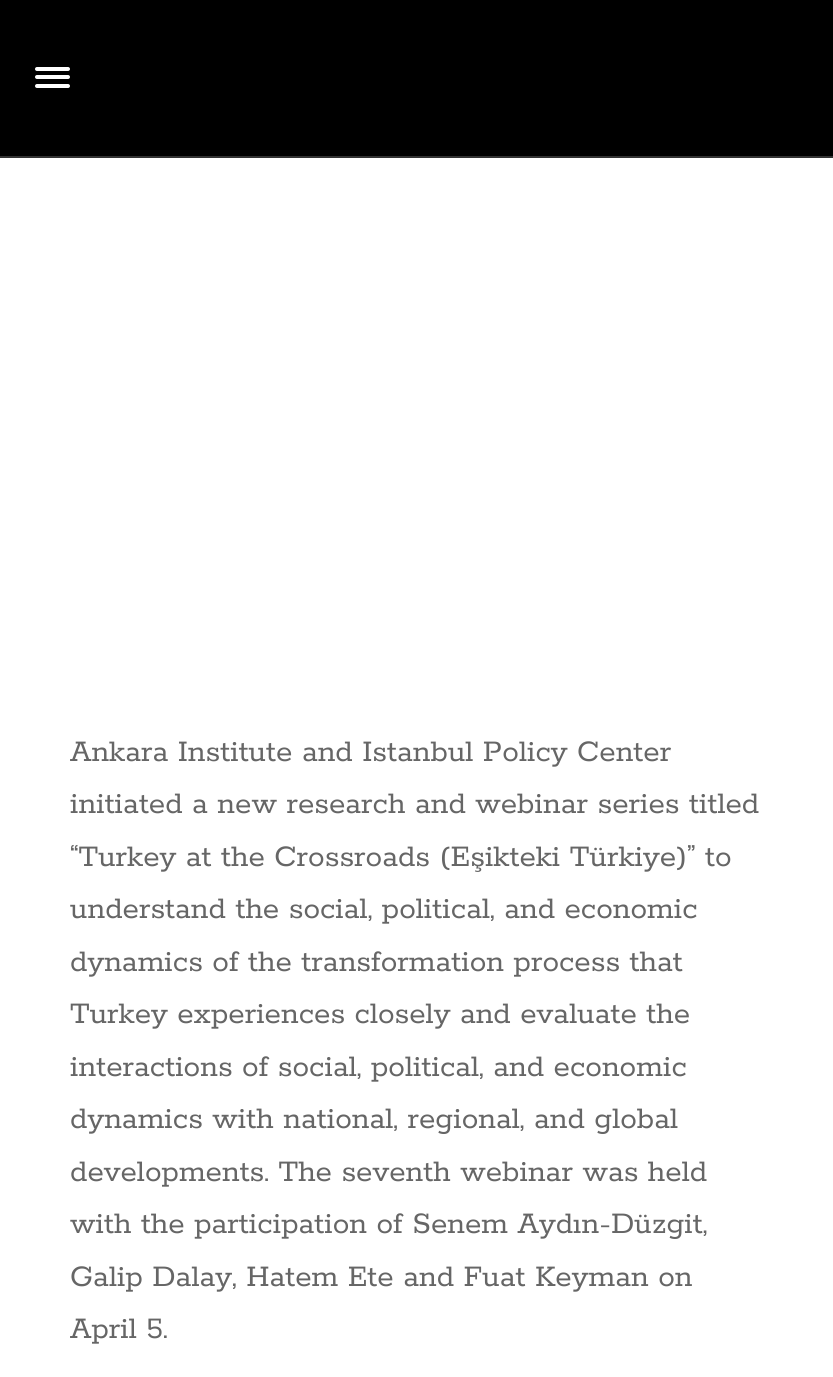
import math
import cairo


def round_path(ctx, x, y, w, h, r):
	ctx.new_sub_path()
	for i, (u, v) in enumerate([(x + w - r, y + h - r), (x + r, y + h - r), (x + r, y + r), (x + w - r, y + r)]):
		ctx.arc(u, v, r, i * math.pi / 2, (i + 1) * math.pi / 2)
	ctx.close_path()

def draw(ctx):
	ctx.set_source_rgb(1, 1, 1)
	ctx.paint()
	ctx.set_source_rgb(0, 0, 0)
	ctx.rectangle(0, 0, 833, 156)
	ctx.fill()
	ctx.set_source_rgb(0.2, 0.2, 0.2)
	ctx.rectangle(0, 156, 833, 2)
	ctx.fill()
	ctx.set_source_rgb(1, 1, 1)
	round_path(ctx, 35, 67, 35, 4, 2)
	ctx.fill()
	round_path(ctx, 35, 75, 35, 4, 2)
	ctx.fill()
	round_path(ctx, 35, 84, 35, 4, 2)
	ctx.fill()
	ctx.select_font_face('Rokkitt')
	ctx.set_font_size(33.25)
	ctx.set_source_rgb(0.4, 0.4, 0.4)
	for x, y, s in [
		(70, 761, 'Ankara Institute and Istanbul Policy Center'),
		(70, 813, 'initiated a new research and webinar series titled'),
		(70, 866, '“Turkey at the Crossroads (Eşikteki Türkiye)” to'),
		(70, 918, 'understand the social, political, and economic'),
		(70, 971, 'dynamics of the transformation process that'),
		(70, 1023, 'Turkey experiences closely and evaluate the'),
		(70, 1076, 'interactions of social, political, and economic'),
		(70, 1128, 'dynamics with national, regional, and global'),
		(70, 1181, 'developments. The seventh webinar was held'),
		(70, 1233, 'with the participation of Senem Aydın-Düzgit,'),
		(70, 1286, 'Galip Dalay, Hatem Ete and Fuat Keyman on'),
		(70, 1338, 'April 5.'),
	]:
		ctx.move_to(x, y)
		ctx.show_text(s)


surface = cairo.ImageSurface(cairo.FORMAT_RGB24, 833, 1377)
ctx = cairo.Context(surface)
options = cairo.FontOptions()
options.set_hint_metrics(cairo.HINT_METRICS_OFF)
options.set_hint_style(cairo.HINT_STYLE_NONE)
ctx.set_font_options(options)
ctx.set_miter_limit(4)
draw(ctx)
surface.write_to_png('image.png')
